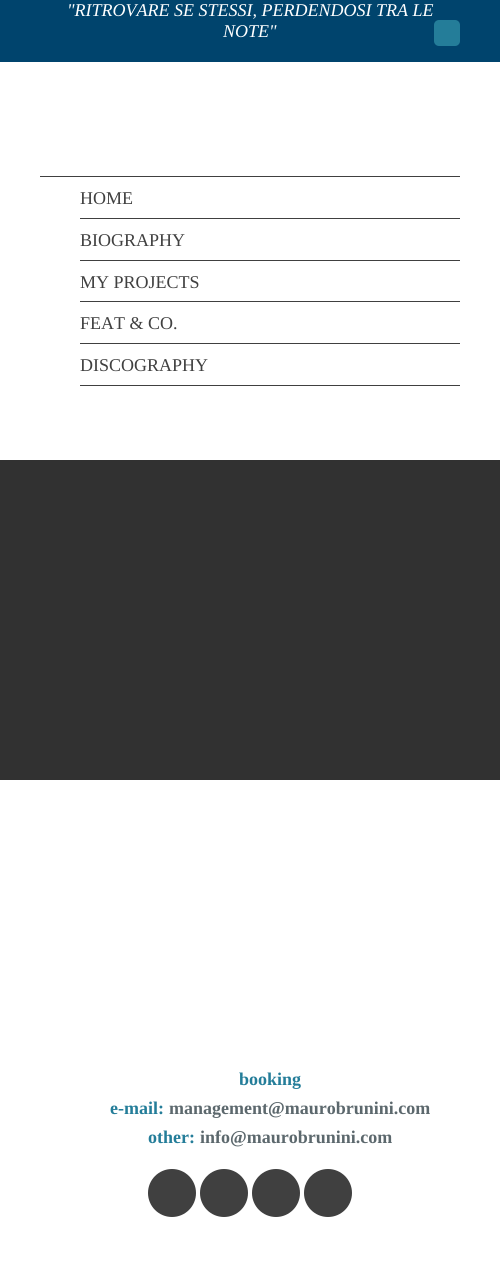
import math
import cairo


def round_path(ctx, x, y, w, h, r):
	ctx.new_sub_path()
	for i, (u, v) in enumerate([(x + w - r, y + h - r), (x + r, y + h - r), (x + r, y + r), (x + w - r, y + r)]):
		ctx.arc(u, v, r, i * math.pi / 2, (i + 1) * math.pi / 2)
	ctx.close_path()

def draw(ctx):
	ctx.set_source_rgb(1, 1, 1)
	ctx.paint()
	ctx.set_source_rgb(0, 0.267, 0.427)
	ctx.rectangle(0, 0, 500, 62)
	ctx.fill()
	ctx.select_font_face('Liberation Serif', cairo.FONT_SLANT_ITALIC)
	ctx.set_font_size(18)
	ctx.set_source_rgb(1, 1, 1)
	ctx.move_to(67, 16)
	ctx.show_text('"RITROVARE SE STESSI, PERDENDOSI TRA LE')
	ctx.move_to(223, 37)
	ctx.show_text('NOTE"')
	ctx.set_source_rgb(0.141, 0.49, 0.6)
	round_path(ctx, 434, 20, 26, 26, 5)
	ctx.fill()
	ctx.set_source_rgb(0.251, 0.251, 0.251)
	ctx.rectangle(40, 176, 420, 1)
	ctx.fill()
	ctx.rectangle(80, 218, 380, 1)
	ctx.fill()
	ctx.select_font_face('Liberation Serif')
	ctx.move_to(80, 204)
	ctx.show_text('HOME')
	ctx.rectangle(80, 260, 380, 1)
	ctx.fill()
	ctx.move_to(80, 246)
	ctx.show_text('BIOGRAPHY')
	ctx.rectangle(80, 301, 380, 1)
	ctx.fill()
	ctx.move_to(80, 288)
	ctx.show_text('MY PROJECTS')
	ctx.rectangle(80, 343, 380, 1)
	ctx.fill()
	ctx.move_to(80, 329)
	ctx.show_text('FEAT & CO.')
	ctx.rectangle(80, 385, 380, 1)
	ctx.fill()
	ctx.move_to(80, 371)
	ctx.show_text('DISCOGRAPHY')
	ctx.set_source_rgb(0.192, 0.192, 0.192)
	ctx.rectangle(0, 460, 500, 320)
	ctx.fill()
	ctx.select_font_face('Liberation Serif', cairo.FONT_SLANT_NORMAL, cairo.FONT_WEIGHT_BOLD)
	ctx.set_source_rgb(0.141, 0.49, 0.6)
	ctx.move_to(239, 1085)
	ctx.show_text('booking')
	ctx.move_to(110, 1114)
	ctx.show_text('e-mail:')
	ctx.set_source_rgb(0.361, 0.408, 0.427)
	ctx.move_to(169, 1114)
	ctx.show_text('management@maurobrunini.com')
	ctx.set_source_rgb(0.141, 0.49, 0.6)
	ctx.move_to(148, 1143)
	ctx.show_text('other:')
	ctx.set_source_rgb(0.361, 0.408, 0.427)
	ctx.move_to(200, 1143)
	ctx.show_text('info@maurobrunini.com')
	ctx.set_source_rgb(0.251, 0.251, 0.251)
	ctx.new_path()
	ctx.arc(172, 1193, 24, 0, 2 * math.pi)
	ctx.fill()
	ctx.arc(224, 1193, 24, 0, 2 * math.pi)
	ctx.fill()
	ctx.arc(276, 1193, 24, 0, 2 * math.pi)
	ctx.fill()
	ctx.arc(328, 1193, 24, 0, 2 * math.pi)
	ctx.fill()


surface = cairo.ImageSurface(cairo.FORMAT_RGB24, 500, 1279)
ctx = cairo.Context(surface)
options = cairo.FontOptions()
options.set_hint_metrics(cairo.HINT_METRICS_OFF)
options.set_hint_style(cairo.HINT_STYLE_NONE)
ctx.set_font_options(options)
ctx.set_miter_limit(4)
draw(ctx)
surface.write_to_png('image.png')
